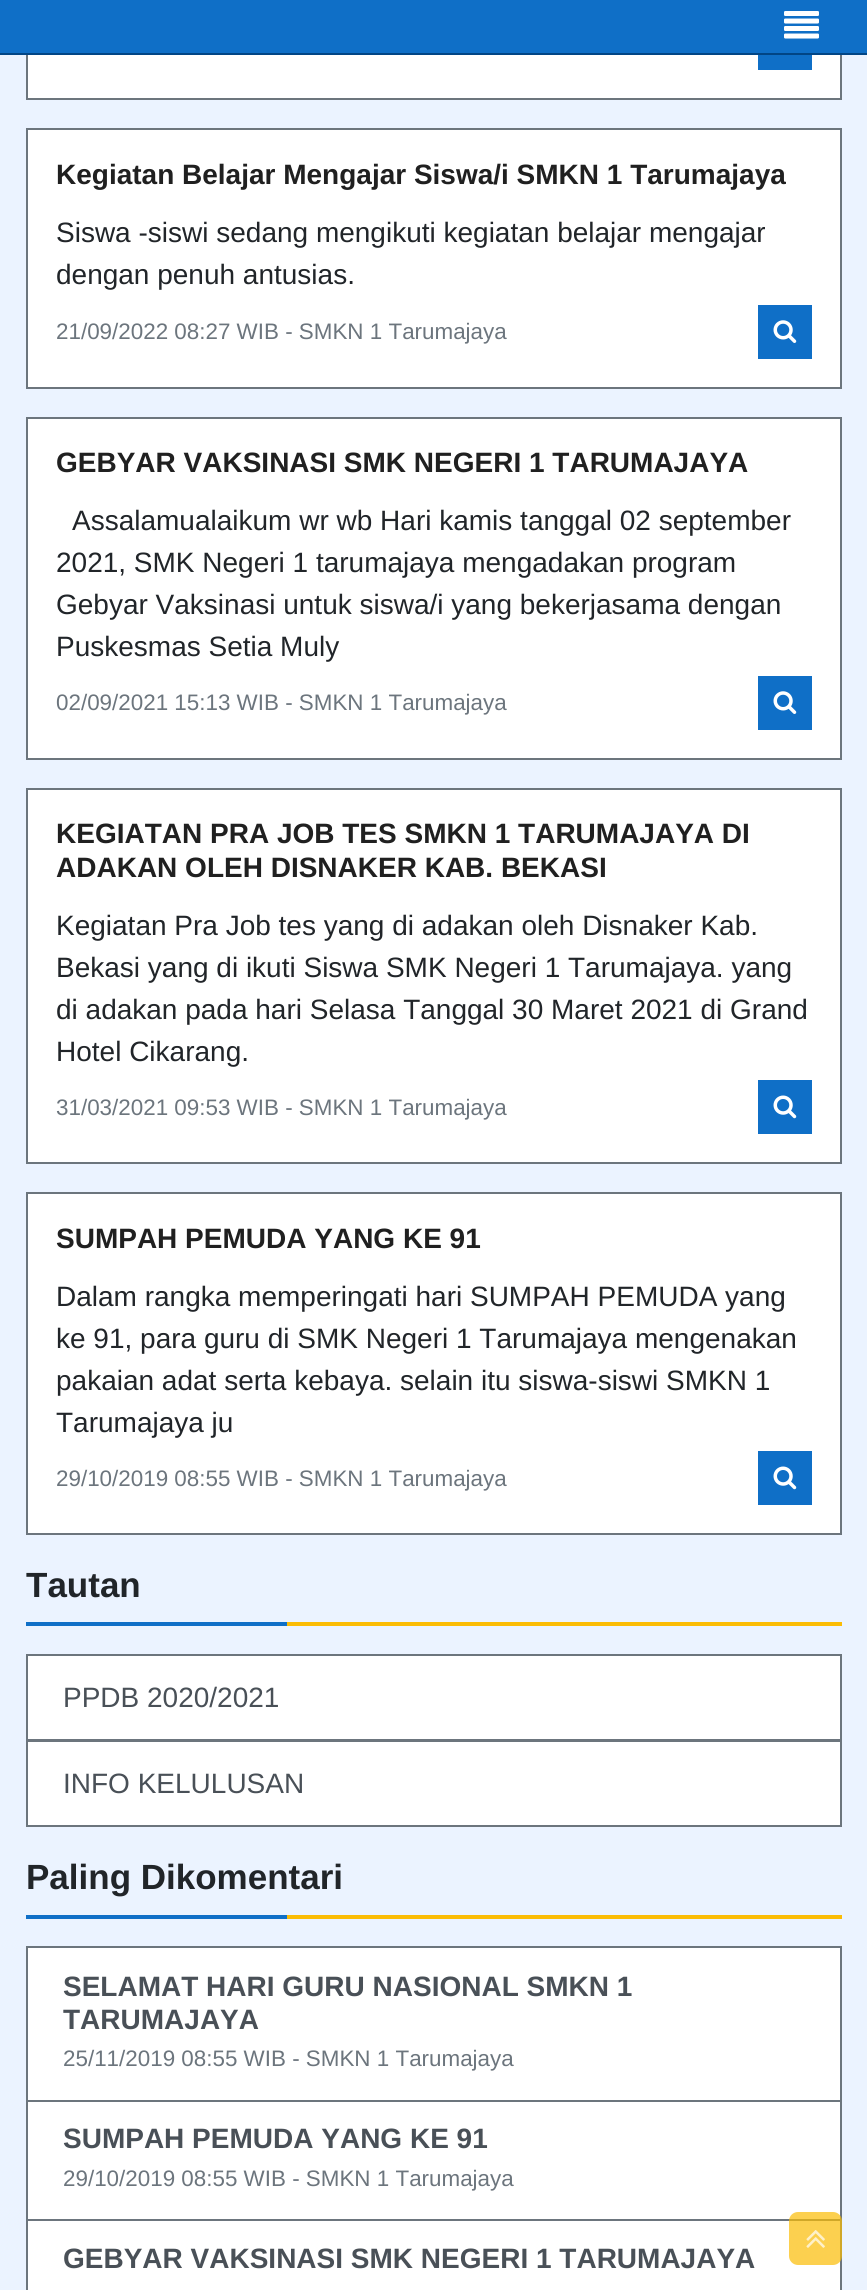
import math
import cairo


def round_path(ctx, x, y, w, h, r):
	ctx.new_sub_path()
	for i, (u, v) in enumerate([(x + w - r, y + h - r), (x + r, y + h - r), (x + r, y + r), (x + w - r, y + r)]):
		ctx.arc(u, v, r, i * math.pi / 2, (i + 1) * math.pi / 2)
	ctx.close_path()

def paste(ctx, path, x, y, w, h):
	ctx.save()
	ctx.set_source_surface(cairo.ImageSurface.create_from_png(path), x, y)
	ctx.rectangle(x, y, w, h)
	ctx.fill()
	ctx.restore()

def draw(ctx):
	ctx.set_source_rgb(0.918, 0.953, 1)
	ctx.paint()
	ctx.set_source_rgb(1, 1, 1)
	ctx.rectangle(28, 55, 812, 43)
	ctx.fill()
	ctx.rectangle(27, -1, 814, 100)
	ctx.set_source_rgb(0.424, 0.459, 0.49)
	ctx.stroke()
	ctx.set_source_rgb(0.059, 0.435, 0.78)
	ctx.rectangle(0, 0, 867, 53)
	ctx.fill()
	ctx.set_source_rgb(0.004, 0.271, 0.522)
	ctx.rectangle(0, 53, 867, 2)
	ctx.fill()
	paste(ctx, 'media/1.png', 784, 11, 35, 28)
	ctx.set_source_rgb(0.059, 0.435, 0.78)
	ctx.rectangle(758, 55, 54, 15)
	ctx.fill()
	ctx.set_source_rgb(1, 1, 1)
	ctx.rectangle(27, 129, 814, 259)
	ctx.fill_preserve()
	ctx.set_source_rgb(0.424, 0.459, 0.49)
	ctx.stroke()
	ctx.select_font_face('Liberation Sans', cairo.FONT_SLANT_NORMAL, cairo.FONT_WEIGHT_BOLD)
	ctx.set_font_size(28)
	ctx.set_source_rgb(0.125, 0.125, 0.125)
	ctx.move_to(56, 184)
	ctx.show_text('Kegiatan Belajar Mengajar Siswa/i SMKN 1 Tarumajaya')
	ctx.select_font_face('Liberation Sans')
	ctx.set_source_rgb(0.129, 0.145, 0.161)
	ctx.move_to(56, 242)
	ctx.show_text('Siswa -siswi sedang mengikuti kegiatan belajar mengajar')
	ctx.move_to(56, 284)
	ctx.show_text('dengan penuh antusias.')
	ctx.set_font_size(22.4)
	ctx.set_source_rgb(0.424, 0.459, 0.49)
	ctx.move_to(56, 339)
	ctx.show_text('21/09/2022 08:27 WIB - SMKN 1 Tarumajaya')
	ctx.set_source_rgb(0.059, 0.435, 0.78)
	ctx.rectangle(758, 305, 54, 54)
	ctx.fill()
	paste(ctx, 'media/2.png', 773, 320, 24, 23)
	ctx.set_source_rgb(1, 1, 1)
	ctx.rectangle(27, 418, 814, 341)
	ctx.fill_preserve()
	ctx.set_source_rgb(0.424, 0.459, 0.49)
	ctx.stroke()
	ctx.select_font_face('Liberation Sans', cairo.FONT_SLANT_NORMAL, cairo.FONT_WEIGHT_BOLD)
	ctx.set_font_size(28)
	ctx.set_source_rgb(0.125, 0.125, 0.125)
	ctx.move_to(56, 472)
	ctx.show_text('GEBYAR VAKSINASI SMK NEGERI 1 TARUMAJAYA')
	ctx.select_font_face('Liberation Sans')
	ctx.set_source_rgb(0.129, 0.145, 0.161)
	for x, y, s in [
		(72, 530, 'Assalamualaikum wr wb Hari kamis tanggal 02 september'),
		(56, 572, '2021, SMK Negeri 1 tarumajaya mengadakan program'),
		(56, 614, 'Gebyar Vaksinasi untuk siswa/i yang bekerjasama dengan'),
		(56, 656, 'Puskesmas Setia Muly'),
	]:
		ctx.move_to(x, y)
		ctx.show_text(s)
	ctx.set_font_size(22.4)
	ctx.set_source_rgb(0.424, 0.459, 0.49)
	ctx.move_to(56, 710)
	ctx.show_text('02/09/2021 15:13 WIB - SMKN 1 Tarumajaya')
	ctx.set_source_rgb(0.059, 0.435, 0.78)
	ctx.rectangle(758, 676, 54, 54)
	ctx.fill()
	paste(ctx, 'media/2.png', 773, 691, 24, 23)
	ctx.set_source_rgb(1, 1, 1)
	ctx.rectangle(27, 789, 814, 374)
	ctx.fill_preserve()
	ctx.set_source_rgb(0.424, 0.459, 0.49)
	ctx.stroke()
	ctx.select_font_face('Liberation Sans', cairo.FONT_SLANT_NORMAL, cairo.FONT_WEIGHT_BOLD)
	ctx.set_font_size(28)
	ctx.set_source_rgb(0.125, 0.125, 0.125)
	ctx.move_to(56, 843)
	ctx.show_text('KEGIATAN PRA JOB TES SMKN 1 TARUMAJAYA DI')
	ctx.move_to(56, 877)
	ctx.show_text('ADAKAN OLEH DISNAKER KAB. BEKASI')
	ctx.select_font_face('Liberation Sans')
	ctx.set_source_rgb(0.129, 0.145, 0.161)
	for x, y, s in [
		(56, 935, 'Kegiatan Pra Job tes yang di adakan oleh Disnaker Kab.'),
		(56, 977, 'Bekasi yang di ikuti Siswa SMK Negeri 1 Tarumajaya. yang'),
		(56, 1019, 'di adakan pada hari Selasa Tanggal 30 Maret 2021 di Grand'),
		(56, 1061, 'Hotel Cikarang.'),
	]:
		ctx.move_to(x, y)
		ctx.show_text(s)
	ctx.set_font_size(22.4)
	ctx.set_source_rgb(0.424, 0.459, 0.49)
	ctx.move_to(56, 1115)
	ctx.show_text('31/03/2021 09:53 WIB - SMKN 1 Tarumajaya')
	ctx.set_source_rgb(0.059, 0.435, 0.78)
	ctx.rectangle(758, 1080, 54, 54)
	ctx.fill()
	paste(ctx, 'media/3.png', 773, 1095, 24, 24)
	ctx.set_source_rgb(1, 1, 1)
	ctx.rectangle(27, 1193, 814, 341)
	ctx.fill_preserve()
	ctx.set_source_rgb(0.424, 0.459, 0.49)
	ctx.stroke()
	ctx.select_font_face('Liberation Sans', cairo.FONT_SLANT_NORMAL, cairo.FONT_WEIGHT_BOLD)
	ctx.set_font_size(28)
	ctx.set_source_rgb(0.125, 0.125, 0.125)
	ctx.move_to(56, 1248)
	ctx.show_text('SUMPAH PEMUDA YANG KE 91')
	ctx.select_font_face('Liberation Sans')
	ctx.set_source_rgb(0.129, 0.145, 0.161)
	for x, y, s in [
		(56, 1306, 'Dalam rangka memperingati hari SUMPAH PEMUDA yang'),
		(56, 1348, 'ke 91, para guru di SMK Negeri 1 Tarumajaya mengenakan'),
		(56, 1390, 'pakaian adat serta kebaya. selain itu siswa-siswi SMKN 1'),
		(56, 1432, 'Tarumajaya ju'),
	]:
		ctx.move_to(x, y)
		ctx.show_text(s)
	ctx.set_font_size(22.4)
	ctx.set_source_rgb(0.424, 0.459, 0.49)
	ctx.move_to(56, 1486)
	ctx.show_text('29/10/2019 08:55 WIB - SMKN 1 Tarumajaya')
	ctx.set_source_rgb(0.059, 0.435, 0.78)
	ctx.rectangle(758, 1451, 54, 54)
	ctx.fill()
	paste(ctx, 'media/3.png', 773, 1466, 24, 24)
	ctx.set_source_rgb(0.984, 0.737, 0.02)
	ctx.rectangle(287, 1622, 555, 4)
	ctx.fill()
	ctx.select_font_face('Liberation Sans', cairo.FONT_SLANT_NORMAL, cairo.FONT_WEIGHT_BOLD)
	ctx.set_font_size(35)
	ctx.set_source_rgb(0.129, 0.145, 0.161)
	ctx.move_to(26, 1597)
	ctx.show_text('Tautan')
	ctx.set_source_rgb(0.059, 0.435, 0.78)
	ctx.rectangle(26, 1622, 261, 4)
	ctx.fill()
	ctx.set_source_rgb(1, 1, 1)
	ctx.rectangle(27, 1655, 814, 85)
	ctx.fill_preserve()
	ctx.set_source_rgb(0.424, 0.459, 0.49)
	ctx.stroke()
	ctx.select_font_face('Liberation Sans')
	ctx.set_font_size(28)
	ctx.set_source_rgb(0.286, 0.314, 0.341)
	ctx.move_to(63, 1707)
	ctx.show_text('PPDB 2020/2021')
	ctx.set_source_rgb(1, 1, 1)
	ctx.rectangle(27, 1741, 814, 85)
	ctx.fill_preserve()
	ctx.set_source_rgb(0.424, 0.459, 0.49)
	ctx.stroke()
	ctx.set_source_rgb(0.286, 0.314, 0.341)
	ctx.move_to(63, 1793)
	ctx.show_text('INFO KELULUSAN')
	ctx.set_source_rgb(0.984, 0.737, 0.02)
	ctx.rectangle(287, 1915, 555, 4)
	ctx.fill()
	ctx.select_font_face('Liberation Sans', cairo.FONT_SLANT_NORMAL, cairo.FONT_WEIGHT_BOLD)
	ctx.set_font_size(35)
	ctx.set_source_rgb(0.129, 0.145, 0.161)
	ctx.move_to(26, 1889)
	ctx.show_text('Paling Dikomentari')
	ctx.set_source_rgb(0.059, 0.435, 0.78)
	ctx.rectangle(26, 1915, 261, 4)
	ctx.fill()
	ctx.set_source_rgb(1, 1, 1)
	ctx.rectangle(27, 1947, 814, 154)
	ctx.fill_preserve()
	ctx.set_source_rgb(0.424, 0.459, 0.49)
	ctx.stroke()
	ctx.set_font_size(28)
	ctx.set_source_rgb(0.286, 0.314, 0.341)
	ctx.move_to(63, 1996)
	ctx.show_text('SELAMAT HARI GURU NASIONAL SMKN 1')
	ctx.move_to(63, 2029)
	ctx.show_text('TARUMAJAYA')
	ctx.select_font_face('Liberation Sans')
	ctx.set_font_size(22.4)
	ctx.set_source_rgb(0.424, 0.459, 0.49)
	ctx.move_to(63, 2066)
	ctx.show_text('25/11/2019 08:55 WIB - SMKN 1 Tarumajaya')
	ctx.set_source_rgb(1, 1, 1)
	ctx.rectangle(27, 2101, 814, 119)
	ctx.fill_preserve()
	ctx.set_source_rgb(0.424, 0.459, 0.49)
	ctx.stroke()
	ctx.select_font_face('Liberation Sans', cairo.FONT_SLANT_NORMAL, cairo.FONT_WEIGHT_BOLD)
	ctx.set_font_size(28)
	ctx.set_source_rgb(0.286, 0.314, 0.341)
	ctx.move_to(63, 2148)
	ctx.show_text('SUMPAH PEMUDA YANG KE 91')
	ctx.select_font_face('Liberation Sans')
	ctx.set_font_size(22.4)
	ctx.set_source_rgb(0.424, 0.459, 0.49)
	ctx.move_to(63, 2186)
	ctx.show_text('29/10/2019 08:55 WIB - SMKN 1 Tarumajaya')
	ctx.set_source_rgb(1, 1, 1)
	ctx.rectangle(27, 2220, 814, 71)
	ctx.fill_preserve()
	ctx.set_source_rgb(0.424, 0.459, 0.49)
	ctx.stroke()
	ctx.select_font_face('Liberation Sans', cairo.FONT_SLANT_NORMAL, cairo.FONT_WEIGHT_BOLD)
	ctx.set_font_size(28)
	ctx.set_source_rgb(0.286, 0.314, 0.341)
	ctx.move_to(63, 2268)
	ctx.show_text('GEBYAR VAKSINASI SMK NEGERI 1 TARUMAJAYA')
	ctx.set_source_rgba(0.984, 0.737, 0.02, 0.7)
	round_path(ctx, 789, 2212, 53, 53, 9)
	ctx.fill()
	paste(ctx, 'media/4.png', 806, 2230, 19, 18)


surface = cairo.ImageSurface(cairo.FORMAT_RGB24, 867, 2290)
ctx = cairo.Context(surface)
options = cairo.FontOptions()
options.set_hint_metrics(cairo.HINT_METRICS_OFF)
options.set_hint_style(cairo.HINT_STYLE_NONE)
ctx.set_font_options(options)
ctx.set_miter_limit(4)
draw(ctx)
surface.write_to_png('image.png')
